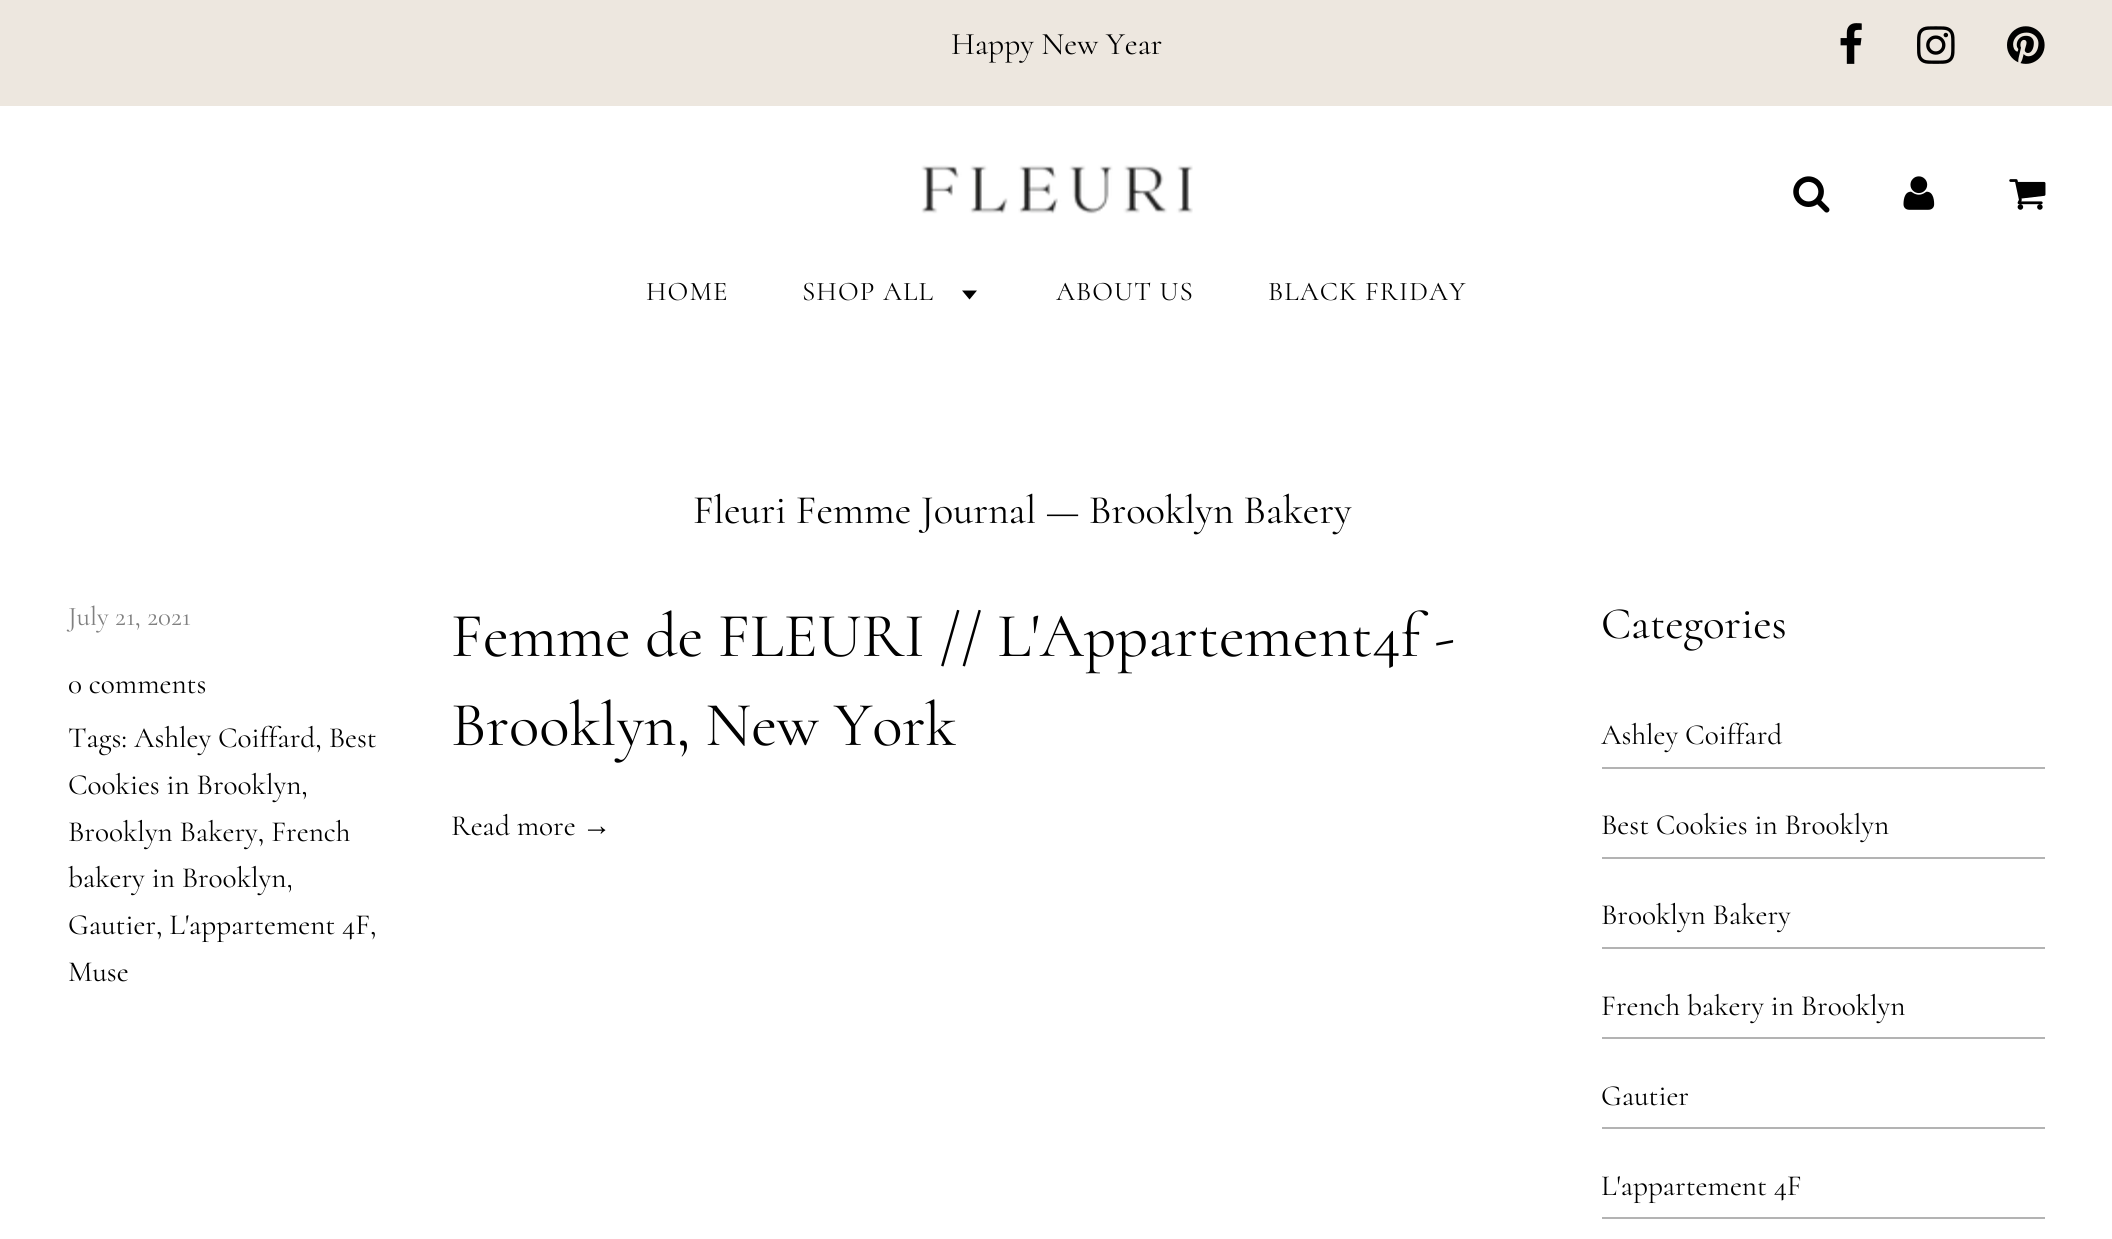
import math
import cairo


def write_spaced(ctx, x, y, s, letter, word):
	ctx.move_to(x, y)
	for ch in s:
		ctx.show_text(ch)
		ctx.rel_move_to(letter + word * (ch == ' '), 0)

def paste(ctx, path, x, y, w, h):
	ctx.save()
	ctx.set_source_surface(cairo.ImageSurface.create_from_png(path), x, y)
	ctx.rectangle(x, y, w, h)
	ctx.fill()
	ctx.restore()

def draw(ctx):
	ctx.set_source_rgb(1, 1, 1)
	ctx.paint()
	ctx.set_source_rgb(0.929, 0.906, 0.875)
	ctx.rectangle(0, 0, 2112, 106)
	ctx.fill()
	ctx.select_font_face('Cormorant')
	ctx.set_font_size(31.5)
	ctx.set_source_rgb(0, 0, 0)
	ctx.move_to(951, 54)
	ctx.show_text('Happy New Year')
	paste(ctx, 'media/1.png', 1840, 23, 22, 41)
	paste(ctx, 'media/2.png', 1917, 26, 38, 38)
	paste(ctx, 'media/3.png', 2007, 26, 38, 38)
	paste(ctx, 'media/4.png', 921, 165, 272, 49)
	paste(ctx, 'media/5.png', 1793, 176, 37, 37)
	paste(ctx, 'media/6.png', 1903, 176, 32, 34)
	paste(ctx, 'media/7.png', 2009, 179, 37, 31)
	ctx.set_font_size(27)
	write_spaced(ctx, 646, 300, 'HOME', 1.1, 0)
	write_spaced(ctx, 802, 300, 'SHOP ALL', 1.1, 0)
	ctx.new_path()
	ctx.move_to(962, 290.5)
	ctx.line_to(969.5, 299.5)
	ctx.line_to(977, 290.5)
	ctx.close_path()
	ctx.fill()
	write_spaced(ctx, 1056, 300, 'ABOUT US', 1.1, 0)
	write_spaced(ctx, 1268, 300, 'BLACK FRIDAY', 1.1, 0)
	ctx.set_font_size(40.5)
	ctx.move_to(693, 523)
	ctx.show_text('Fleuri Femme Journal — Brooklyn Bakery')
	ctx.set_font_size(27)
	ctx.set_source_rgb(0.502, 0.502, 0.502)
	ctx.move_to(68, 625)
	ctx.show_text('July 21, 2021')
	ctx.set_font_size(29.25)
	ctx.set_source_rgb(0, 0, 0)
	for x, y, s in [
		(68, 693, '0 comments'),
		(68, 747, 'Tags: Ashley Coiffard, Best'),
		(68, 794, 'Cookies in Brooklyn,'),
		(68, 841, 'Brooklyn Bakery, French'),
		(68, 887, 'bakery in Brooklyn,'),
		(68, 934, 'Gautier, L\'appartement 4F,'),
		(68, 981, 'Muse'),
	]:
		ctx.move_to(x, y)
		ctx.show_text(s)
	ctx.set_font_size(63)
	ctx.move_to(451, 656)
	ctx.show_text('Femme de FLEURI // L\'Appartement4f -')
	ctx.move_to(451, 745)
	ctx.show_text('Brooklyn, New York')
	ctx.set_font_size(29.25)
	ctx.move_to(451, 835)
	ctx.show_text('Read more')
	ctx.select_font_face('Liberation Serif')
	ctx.move_to(582, 835)
	ctx.show_text('→')
	ctx.select_font_face('Cormorant')
	ctx.set_font_size(45)
	ctx.move_to(1601, 638)
	ctx.show_text('Categories')
	ctx.set_font_size(29.25)
	ctx.move_to(1601, 744)
	ctx.show_text('Ashley Coiffard')
	ctx.set_source_rgb(0.702, 0.702, 0.702)
	ctx.rectangle(1602, 767, 443, 2)
	ctx.fill()
	ctx.set_source_rgb(0, 0, 0)
	ctx.move_to(1601, 834)
	ctx.show_text('Best Cookies in Brooklyn')
	ctx.set_source_rgb(0.702, 0.702, 0.702)
	ctx.rectangle(1602, 857, 443, 2)
	ctx.fill()
	ctx.set_source_rgb(0, 0, 0)
	ctx.move_to(1601, 924)
	ctx.show_text('Brooklyn Bakery')
	ctx.set_source_rgb(0.702, 0.702, 0.702)
	ctx.rectangle(1602, 947, 443, 2)
	ctx.fill()
	ctx.set_source_rgb(0, 0, 0)
	ctx.move_to(1601, 1015)
	ctx.show_text('French bakery in Brooklyn')
	ctx.set_source_rgb(0.702, 0.702, 0.702)
	ctx.rectangle(1602, 1037, 443, 2)
	ctx.fill()
	ctx.set_source_rgb(0, 0, 0)
	ctx.move_to(1601, 1105)
	ctx.show_text('Gautier')
	ctx.set_source_rgb(0.702, 0.702, 0.702)
	ctx.rectangle(1602, 1127, 443, 2)
	ctx.fill()
	ctx.set_source_rgb(0, 0, 0)
	ctx.move_to(1601, 1195)
	ctx.show_text('L\'appartement 4F')
	ctx.set_source_rgb(0.702, 0.702, 0.702)
	ctx.rectangle(1602, 1217, 443, 2)
	ctx.fill()


surface = cairo.ImageSurface(cairo.FORMAT_RGB24, 2112, 1239)
ctx = cairo.Context(surface)
options = cairo.FontOptions()
options.set_hint_metrics(cairo.HINT_METRICS_OFF)
options.set_hint_style(cairo.HINT_STYLE_NONE)
ctx.set_font_options(options)
ctx.set_miter_limit(4)
draw(ctx)
surface.write_to_png('image.png')
